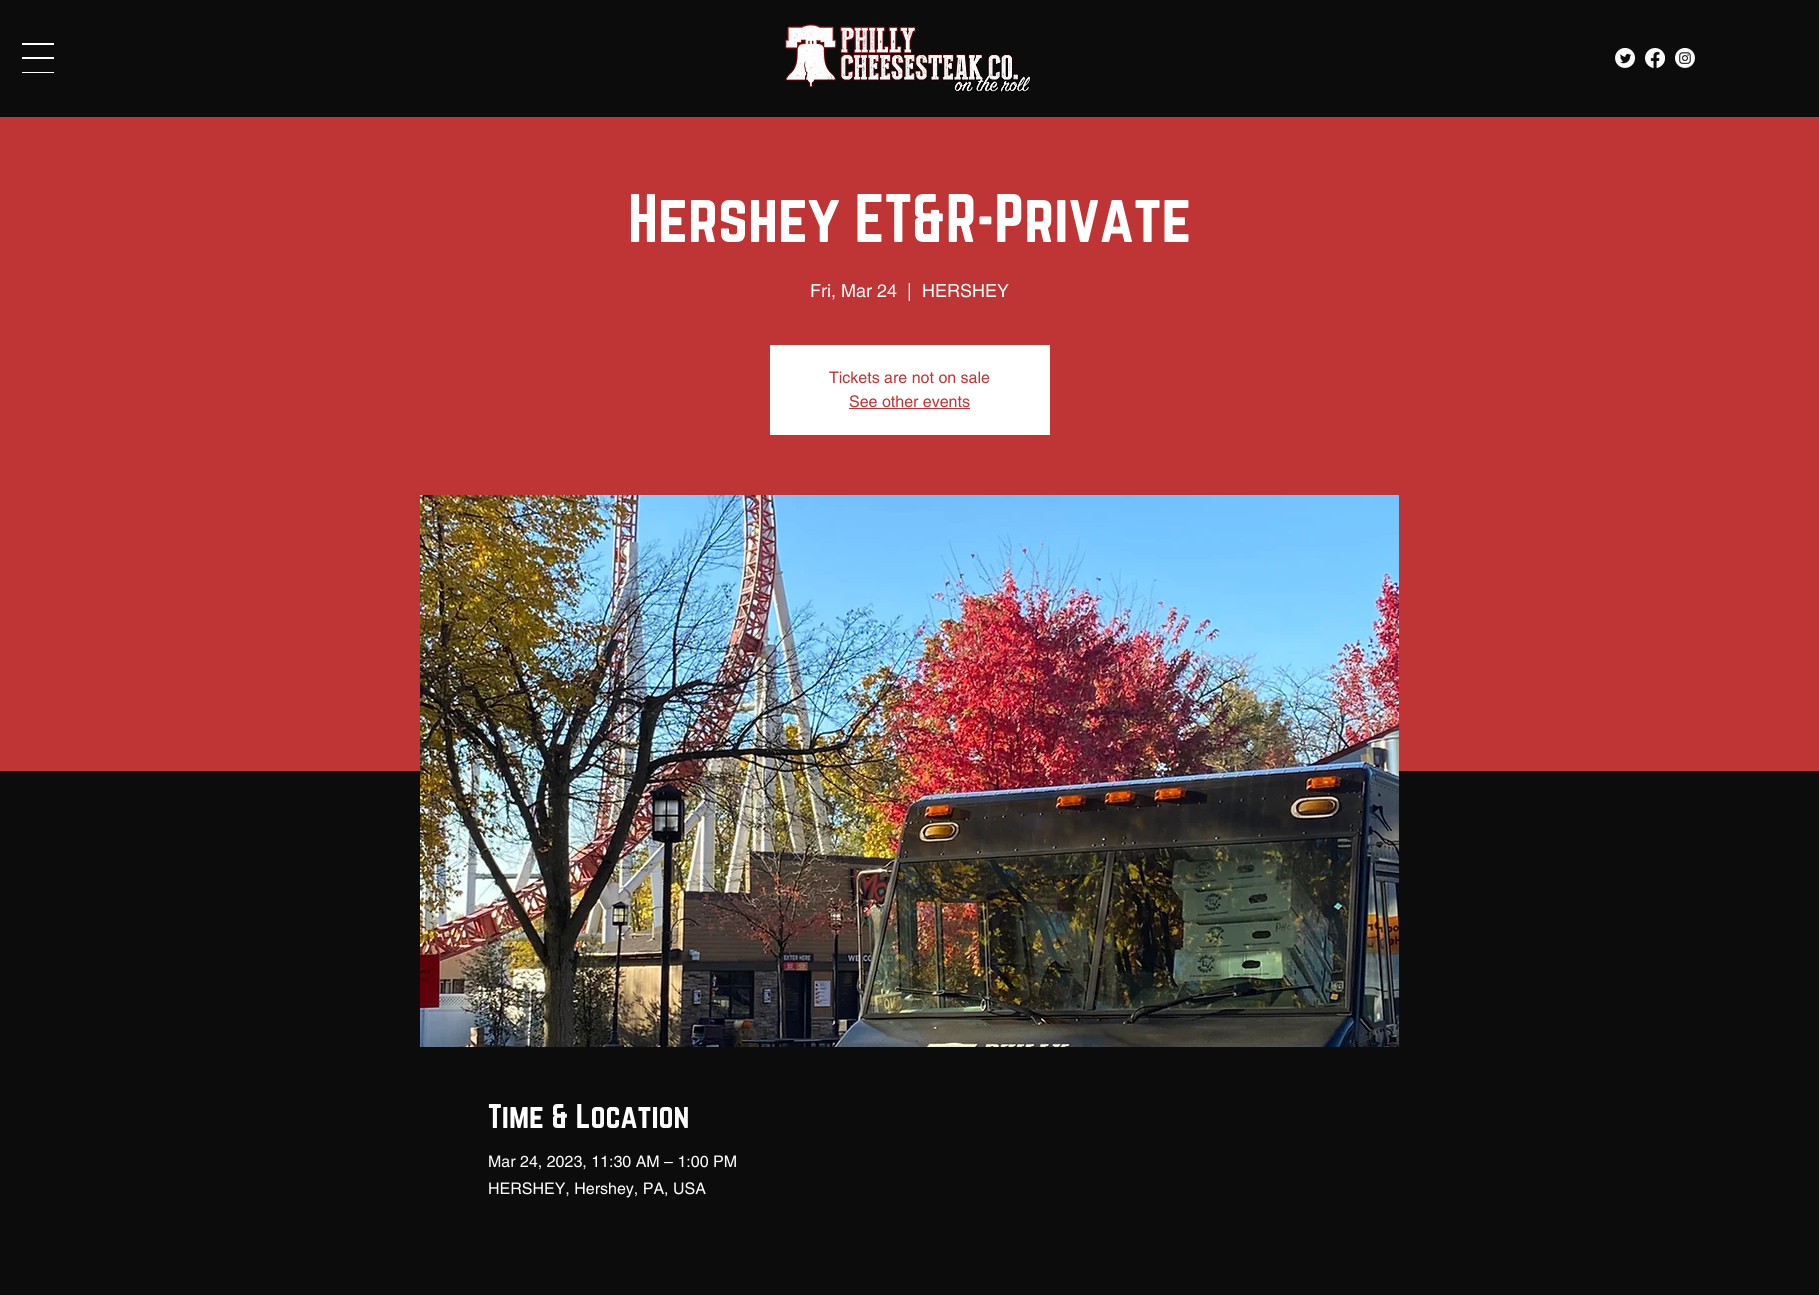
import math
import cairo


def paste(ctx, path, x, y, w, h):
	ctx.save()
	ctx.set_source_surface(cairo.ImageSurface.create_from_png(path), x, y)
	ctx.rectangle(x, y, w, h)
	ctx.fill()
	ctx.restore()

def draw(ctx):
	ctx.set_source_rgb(0.047, 0.047, 0.051)
	ctx.paint()
	ctx.set_source_rgb(1, 1, 1)
	ctx.rectangle(22, 43, 32, 2)
	ctx.rectangle(22, 57, 32, 2)
	ctx.rectangle(22, 72, 32, 1)
	ctx.fill()
	paste(ctx, 'media/1.png', 785, 24, 246, 69)
	paste(ctx, 'media/2.png', 1615, 48, 20, 20)
	paste(ctx, 'media/3.png', 1645, 48, 20, 20)
	paste(ctx, 'media/4.png', 1675, 48, 20, 20)
	ctx.set_source_rgb(0.749, 0.204, 0.204)
	ctx.rectangle(0, 117, 1819, 654)
	ctx.fill()
	ctx.select_font_face('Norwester')
	ctx.set_font_size(60)
	ctx.set_source_rgb(1, 1, 1)
	ctx.move_to(628, 242)
	ctx.show_text('Hershey ET&R-Private')
	ctx.select_font_face('helvetica')
	ctx.set_font_size(18)
	for x, y, s in [
		(810, 297, 'Fri, Mar 24'),
		(907, 297, '|'),
		(922, 297, 'HERSHEY'),
	]:
		ctx.move_to(x, y)
		ctx.show_text(s)
	ctx.rectangle(770, 345, 280, 90)
	ctx.fill()
	ctx.set_font_size(16)
	ctx.set_source_rgb(0.749, 0.204, 0.204)
	ctx.move_to(829, 383)
	ctx.show_text('Tickets are not on sale')
	ctx.move_to(849, 407)
	ctx.show_text('See other events')
	ctx.rectangle(849, 408, 121, 1)
	ctx.fill()
	paste(ctx, 'media/5.png', 420, 495, 979, 552)
	ctx.select_font_face('Norwester')
	ctx.set_font_size(30)
	ctx.set_source_rgb(1, 1, 1)
	ctx.move_to(488, 1128)
	ctx.show_text('Time & Location')
	ctx.select_font_face('helvetica')
	ctx.set_font_size(16)
	ctx.move_to(488, 1167)
	ctx.show_text('Mar 24, 2023, 11:30 AM – 1:00 PM')
	ctx.move_to(488, 1194)
	ctx.show_text('HERSHEY, Hershey, PA, USA')


surface = cairo.ImageSurface(cairo.FORMAT_RGB24, 1819, 1295)
ctx = cairo.Context(surface)
options = cairo.FontOptions()
options.set_hint_metrics(cairo.HINT_METRICS_OFF)
options.set_hint_style(cairo.HINT_STYLE_NONE)
ctx.set_font_options(options)
ctx.set_miter_limit(4)
draw(ctx)
surface.write_to_png('image.png')
